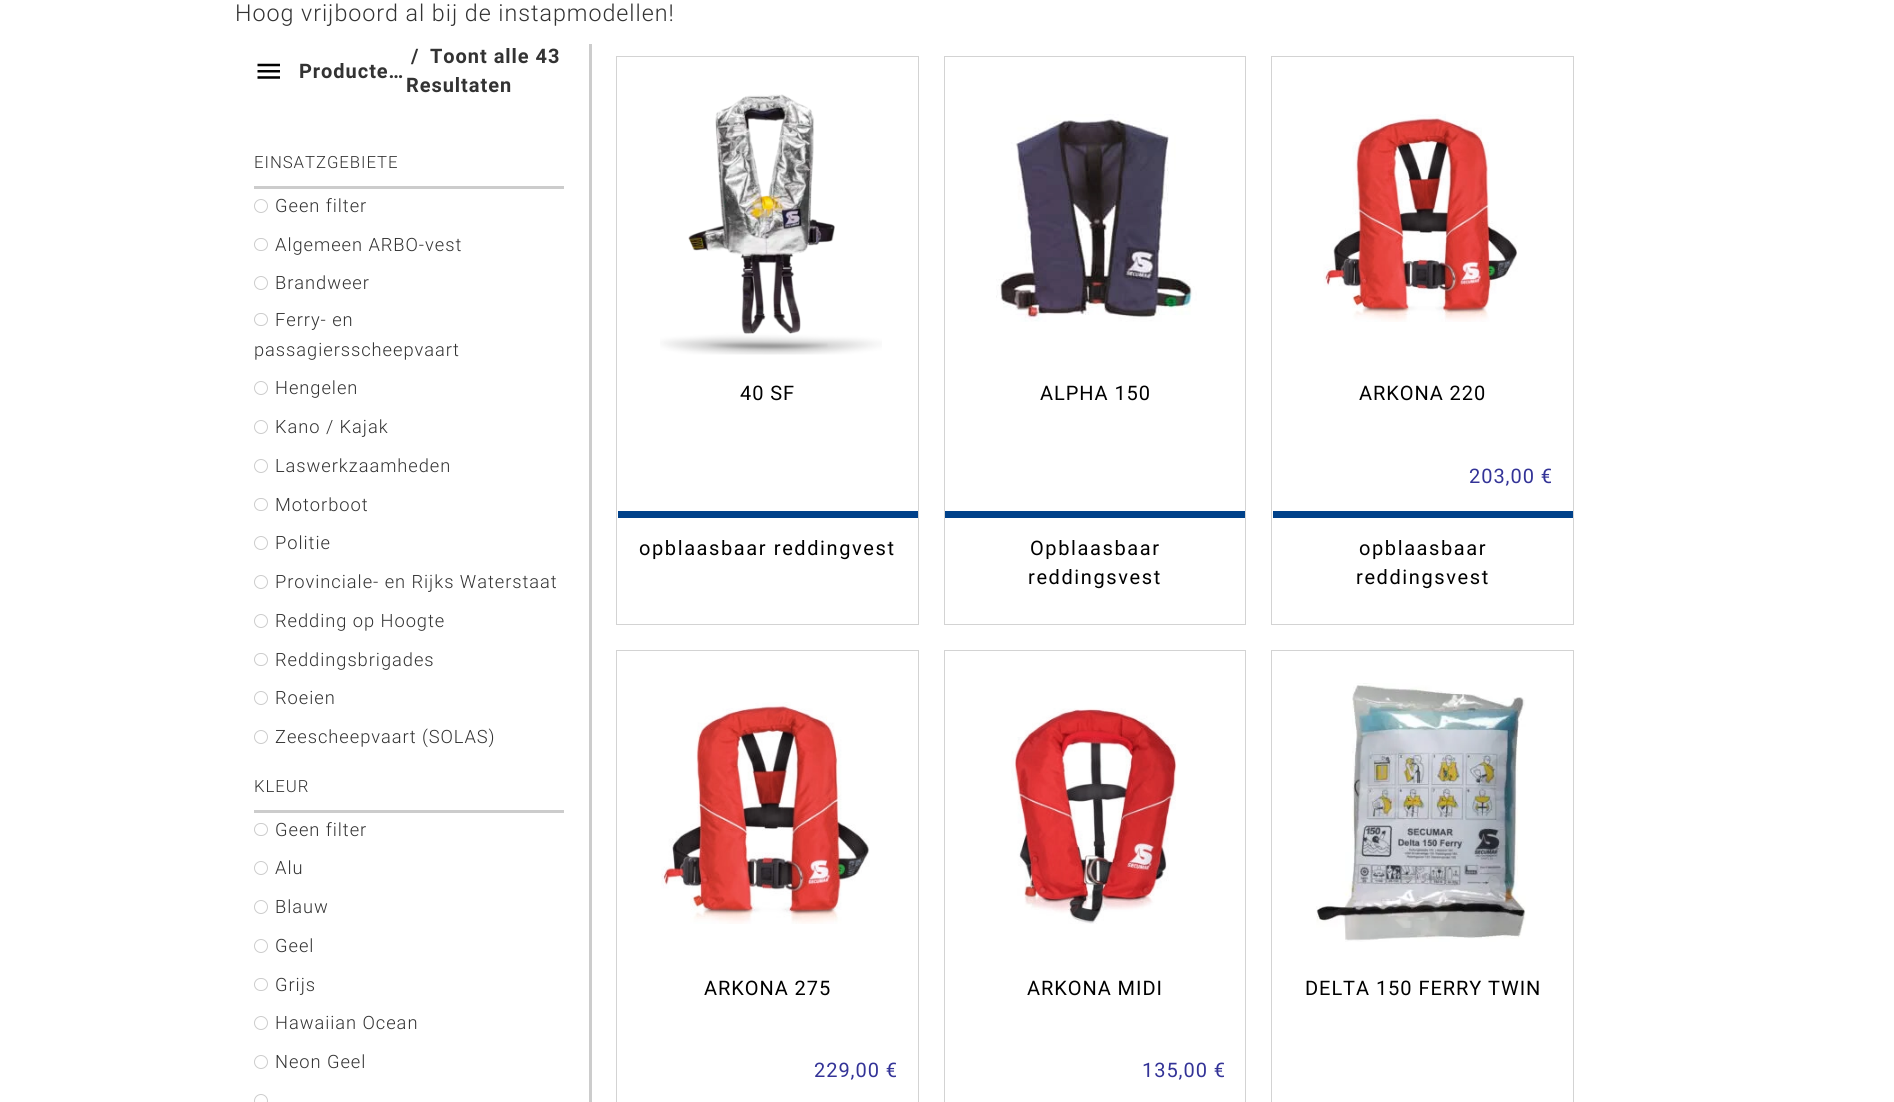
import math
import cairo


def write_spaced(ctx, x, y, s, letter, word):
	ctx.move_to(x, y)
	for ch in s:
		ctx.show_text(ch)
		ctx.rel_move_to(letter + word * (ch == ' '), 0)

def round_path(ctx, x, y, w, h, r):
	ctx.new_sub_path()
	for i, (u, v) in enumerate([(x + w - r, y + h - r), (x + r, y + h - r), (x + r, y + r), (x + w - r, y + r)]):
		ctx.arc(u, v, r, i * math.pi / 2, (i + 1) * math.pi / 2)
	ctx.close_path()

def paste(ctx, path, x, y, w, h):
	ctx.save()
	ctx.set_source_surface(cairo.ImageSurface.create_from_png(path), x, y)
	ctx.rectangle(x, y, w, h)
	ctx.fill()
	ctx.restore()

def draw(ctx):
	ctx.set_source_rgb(1, 1, 1)
	ctx.paint()
	ctx.select_font_face('Roboto Light')
	ctx.set_font_size(23.3)
	ctx.set_source_rgb(0.2, 0.2, 0.2)
	write_spaced(ctx, 235, 21, 'Hoog vrijboord al bij de instapmodellen!', 0.95, 0)
	ctx.set_source_rgb(0.8, 0.8, 0.8)
	ctx.rectangle(589, 44, 3, 1058)
	ctx.fill()
	paste(ctx, 'media/1.png', 257, 63, 23, 16)
	ctx.select_font_face('Roboto', cairo.FONT_SLANT_NORMAL, cairo.FONT_WEIGHT_BOLD)
	ctx.set_font_size(20)
	ctx.set_source_rgb(0.2, 0.2, 0.2)
	for x, y, s in [
		(299, 78, 'Producte…'),
		(411, 63, '/'),
		(430, 63, 'Toont alle 43'),
		(406, 92, 'Resultaten'),
	]:
		write_spaced(ctx, x, y, s, 0.95, 0)
	ctx.set_source_rgb(0.8, 0.8, 0.8)
	ctx.rectangle(254, 186, 310, 3)
	ctx.fill()
	ctx.select_font_face('Roboto Light')
	ctx.set_font_size(16.75)
	ctx.set_source_rgb(0.2, 0.2, 0.2)
	write_spaced(ctx, 254, 168, 'EINSATZGEBIETE', 0.95, 0)
	ctx.new_path()
	ctx.arc(261, 206, 6.5, 0, 2 * math.pi)
	ctx.set_source_rgb(0.8, 0.8, 0.8)
	ctx.set_line_width(1)
	ctx.stroke()
	ctx.set_font_size(18.3)
	ctx.set_source_rgb(0.2, 0.2, 0.2)
	write_spaced(ctx, 275, 212, 'Geen filter', 0.95, 0)
	round_path(ctx, 254.5, 238.5, 13, 12, 6)
	ctx.set_source_rgb(0.8, 0.8, 0.8)
	ctx.stroke()
	ctx.set_source_rgb(0.2, 0.2, 0.2)
	write_spaced(ctx, 275, 251, 'Algemeen ARBO-vest', 0.95, 0)
	ctx.new_path()
	ctx.arc(261, 283, 6.5, 0, 2 * math.pi)
	ctx.set_source_rgb(0.8, 0.8, 0.8)
	ctx.stroke()
	ctx.set_source_rgb(0.2, 0.2, 0.2)
	write_spaced(ctx, 275, 289, 'Brandweer', 0.95, 0)
	round_path(ctx, 254.5, 313.5, 13, 12, 6)
	ctx.set_source_rgb(0.8, 0.8, 0.8)
	ctx.stroke()
	ctx.set_source_rgb(0.2, 0.2, 0.2)
	write_spaced(ctx, 275, 326, 'Ferry- en', 0.95, 0)
	write_spaced(ctx, 254, 356, 'passagiersscheepvaart', 0.95, 0)
	ctx.new_path()
	ctx.arc(261, 388, 6.5, 0, 2 * math.pi)
	ctx.set_source_rgb(0.8, 0.8, 0.8)
	ctx.stroke()
	ctx.set_source_rgb(0.2, 0.2, 0.2)
	write_spaced(ctx, 275, 394, 'Hengelen', 0.95, 0)
	ctx.new_path()
	ctx.arc(261, 427, 6.5, 0, 2 * math.pi)
	ctx.set_source_rgb(0.8, 0.8, 0.8)
	ctx.stroke()
	ctx.set_source_rgb(0.2, 0.2, 0.2)
	write_spaced(ctx, 275, 433, 'Kano / Kajak', 0.95, 0)
	ctx.new_path()
	ctx.arc(261, 466, 6.5, 0, 2 * math.pi)
	ctx.set_source_rgb(0.8, 0.8, 0.8)
	ctx.stroke()
	ctx.set_source_rgb(0.2, 0.2, 0.2)
	write_spaced(ctx, 275, 472, 'Laswerkzaamheden', 0.95, 0)
	round_path(ctx, 254.5, 498.5, 13, 12, 6)
	ctx.set_source_rgb(0.8, 0.8, 0.8)
	ctx.stroke()
	ctx.set_source_rgb(0.2, 0.2, 0.2)
	write_spaced(ctx, 275, 511, 'Motorboot', 0.95, 0)
	ctx.new_path()
	ctx.arc(261, 543, 6.5, 0, 2 * math.pi)
	ctx.set_source_rgb(0.8, 0.8, 0.8)
	ctx.stroke()
	ctx.set_source_rgb(0.2, 0.2, 0.2)
	write_spaced(ctx, 275, 549, 'Politie', 0.95, 0)
	ctx.new_path()
	ctx.arc(261, 582, 6.5, 0, 2 * math.pi)
	ctx.set_source_rgb(0.8, 0.8, 0.8)
	ctx.stroke()
	ctx.set_source_rgb(0.2, 0.2, 0.2)
	write_spaced(ctx, 275, 588, 'Provinciale- en Rijks Waterstaat', 0.95, 0)
	ctx.new_path()
	ctx.arc(261, 621, 6.5, 0, 2 * math.pi)
	ctx.set_source_rgb(0.8, 0.8, 0.8)
	ctx.stroke()
	ctx.set_source_rgb(0.2, 0.2, 0.2)
	write_spaced(ctx, 275, 627, 'Redding op Hoogte', 0.95, 0)
	round_path(ctx, 254.5, 653.5, 13, 12, 6)
	ctx.set_source_rgb(0.8, 0.8, 0.8)
	ctx.stroke()
	ctx.set_source_rgb(0.2, 0.2, 0.2)
	write_spaced(ctx, 275, 666, 'Reddingsbrigades', 0.95, 0)
	ctx.new_path()
	ctx.arc(261, 698, 6.5, 0, 2 * math.pi)
	ctx.set_source_rgb(0.8, 0.8, 0.8)
	ctx.stroke()
	ctx.set_source_rgb(0.2, 0.2, 0.2)
	write_spaced(ctx, 275, 704, 'Roeien', 0.95, 0)
	ctx.new_path()
	ctx.arc(261, 737, 6.5, 0, 2 * math.pi)
	ctx.set_source_rgb(0.8, 0.8, 0.8)
	ctx.stroke()
	ctx.set_source_rgb(0.2, 0.2, 0.2)
	write_spaced(ctx, 275, 743, 'Zeescheepvaart (SOLAS)', 0.95, 0)
	ctx.set_source_rgb(0.8, 0.8, 0.8)
	ctx.rectangle(254, 810, 310, 3)
	ctx.fill()
	ctx.set_font_size(16.75)
	ctx.set_source_rgb(0.2, 0.2, 0.2)
	write_spaced(ctx, 254, 792, 'KLEUR', 0.95, 0)
	round_path(ctx, 254.5, 823.5, 13, 12, 6)
	ctx.set_source_rgb(0.8, 0.8, 0.8)
	ctx.stroke()
	ctx.set_font_size(18.3)
	ctx.set_source_rgb(0.2, 0.2, 0.2)
	write_spaced(ctx, 275, 836, 'Geen filter', 0.95, 0)
	ctx.new_path()
	ctx.arc(261, 868, 6.5, 0, 2 * math.pi)
	ctx.set_source_rgb(0.8, 0.8, 0.8)
	ctx.stroke()
	ctx.set_source_rgb(0.2, 0.2, 0.2)
	write_spaced(ctx, 275, 874, 'Alu', 0.95, 0)
	ctx.new_path()
	ctx.arc(261, 907, 6.5, 0, 2 * math.pi)
	ctx.set_source_rgb(0.8, 0.8, 0.8)
	ctx.stroke()
	ctx.set_source_rgb(0.2, 0.2, 0.2)
	write_spaced(ctx, 275, 913, 'Blauw', 0.95, 0)
	ctx.new_path()
	ctx.arc(261, 946, 6.5, 0, 2 * math.pi)
	ctx.set_source_rgb(0.8, 0.8, 0.8)
	ctx.stroke()
	ctx.set_source_rgb(0.2, 0.2, 0.2)
	write_spaced(ctx, 275, 952, 'Geel', 0.95, 0)
	round_path(ctx, 254.5, 978.5, 13, 12, 6)
	ctx.set_source_rgb(0.8, 0.8, 0.8)
	ctx.stroke()
	ctx.set_source_rgb(0.2, 0.2, 0.2)
	write_spaced(ctx, 275, 991, 'Grijs', 0.95, 0)
	ctx.new_path()
	ctx.arc(261, 1023, 6.5, 0, 2 * math.pi)
	ctx.set_source_rgb(0.8, 0.8, 0.8)
	ctx.stroke()
	ctx.set_source_rgb(0.2, 0.2, 0.2)
	write_spaced(ctx, 275, 1029, 'Hawaiian Ocean', 0.95, 0)
	ctx.new_path()
	ctx.arc(261, 1062, 6.5, 0, 2 * math.pi)
	ctx.set_source_rgb(0.8, 0.8, 0.8)
	ctx.stroke()
	ctx.set_source_rgb(0.2, 0.2, 0.2)
	write_spaced(ctx, 275, 1068, 'Neon Geel', 0.95, 0)
	ctx.new_path()
	ctx.arc(261, 1101, 6.5, 0, 2 * math.pi)
	ctx.set_source_rgb(0.8, 0.8, 0.8)
	ctx.stroke()
	ctx.rectangle(616.5, 56.5, 302, 568)
	ctx.set_source_rgb(0.827, 0.827, 0.827)
	ctx.stroke()
	ctx.set_source_rgb(0, 0.255, 0.541)
	ctx.rectangle(618, 511, 300, 7)
	ctx.fill()
	paste(ctx, 'media/2.png', 660, 94, 222, 261)
	ctx.select_font_face('Roboto')
	ctx.set_font_size(20)
	ctx.set_source_rgb(0, 0, 0)
	write_spaced(ctx, 740, 400, '40 SF', 0.95, 0)
	write_spaced(ctx, 639, 555, 'opblaasbaar reddingvest', 1.6, 0)
	ctx.rectangle(944.5, 56.5, 301, 568)
	ctx.set_source_rgb(0.827, 0.827, 0.827)
	ctx.stroke()
	ctx.set_source_rgb(0, 0.255, 0.541)
	ctx.rectangle(945, 511, 300, 7)
	ctx.fill()
	paste(ctx, 'media/3.png', 996, 114, 201, 208)
	ctx.set_source_rgb(0, 0, 0)
	write_spaced(ctx, 1040, 400, 'ALPHA 150', 0.95, 0)
	write_spaced(ctx, 1030, 555, 'Opblaasbaar', 1.6, 0)
	write_spaced(ctx, 1028, 584, 'reddingsvest', 1.6, 0)
	ctx.rectangle(1271.5, 56.5, 302, 568)
	ctx.set_source_rgb(0.827, 0.827, 0.827)
	ctx.stroke()
	ctx.set_source_rgb(0, 0.255, 0.541)
	ctx.rectangle(1273, 511, 300, 7)
	ctx.fill()
	paste(ctx, 'media/4.png', 1323, 114, 195, 208)
	ctx.set_source_rgb(0, 0, 0)
	write_spaced(ctx, 1359, 400, 'ARKONA 220', 0.95, 0)
	ctx.set_source_rgb(0.2, 0.2, 0.592)
	write_spaced(ctx, 1469, 483, '203,00 €', 0.95, 0)
	ctx.set_source_rgb(0, 0, 0)
	write_spaced(ctx, 1359, 555, 'opblaasbaar', 1.6, 0)
	write_spaced(ctx, 1356, 584, 'reddingsvest', 1.6, 0)
	ctx.rectangle(616.5, 650.5, 302, 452)
	ctx.set_source_rgb(0.827, 0.827, 0.827)
	ctx.stroke()
	paste(ctx, 'media/5.png', 661, 702, 209, 222)
	ctx.set_source_rgb(0, 0, 0)
	write_spaced(ctx, 704, 995, 'ARKONA 275', 0.95, 0)
	ctx.set_source_rgb(0.2, 0.2, 0.592)
	write_spaced(ctx, 814, 1077, '229,00 €', 0.95, 0)
	ctx.rectangle(944.5, 650.5, 301, 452)
	ctx.set_source_rgb(0.827, 0.827, 0.827)
	ctx.stroke()
	paste(ctx, 'media/6.png', 1011, 708, 166, 216)
	ctx.set_source_rgb(0, 0, 0)
	write_spaced(ctx, 1027, 995, 'ARKONA MIDI', 0.95, 0)
	ctx.set_source_rgb(0.2, 0.2, 0.592)
	write_spaced(ctx, 1142, 1077, '135,00 €', 0.95, 0)
	ctx.rectangle(1271.5, 650.5, 302, 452)
	ctx.set_source_rgb(0.827, 0.827, 0.827)
	ctx.stroke()
	paste(ctx, 'media/7.png', 1316, 683, 210, 259)
	ctx.set_source_rgb(0, 0, 0)
	write_spaced(ctx, 1305, 995, 'DELTA 150 FERRY TWIN', 0.95, 0)


surface = cairo.ImageSurface(cairo.FORMAT_RGB24, 1894, 1102)
ctx = cairo.Context(surface)
options = cairo.FontOptions()
options.set_hint_metrics(cairo.HINT_METRICS_OFF)
options.set_hint_style(cairo.HINT_STYLE_NONE)
ctx.set_font_options(options)
ctx.set_miter_limit(4)
draw(ctx)
surface.write_to_png('image.png')
